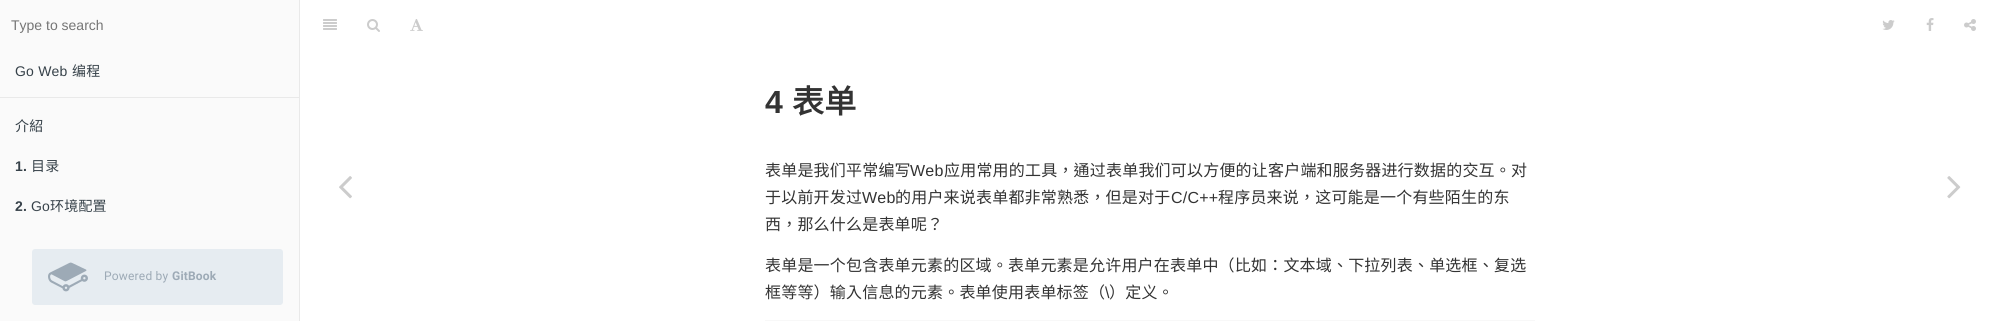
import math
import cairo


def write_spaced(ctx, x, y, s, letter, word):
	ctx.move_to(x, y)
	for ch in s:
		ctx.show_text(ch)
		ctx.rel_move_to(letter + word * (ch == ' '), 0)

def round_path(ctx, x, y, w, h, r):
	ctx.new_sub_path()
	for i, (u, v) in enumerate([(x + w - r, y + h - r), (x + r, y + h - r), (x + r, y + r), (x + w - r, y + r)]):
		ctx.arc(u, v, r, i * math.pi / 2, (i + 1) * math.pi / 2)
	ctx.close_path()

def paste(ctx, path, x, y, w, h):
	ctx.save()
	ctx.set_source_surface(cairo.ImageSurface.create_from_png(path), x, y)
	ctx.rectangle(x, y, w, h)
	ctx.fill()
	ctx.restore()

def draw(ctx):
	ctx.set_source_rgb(1, 1, 1)
	ctx.paint()
	ctx.set_source_rgb(0.98, 0.98, 0.98)
	ctx.rectangle(0, 0, 299, 321)
	ctx.fill()
	ctx.set_source_rgb(0.914, 0.914, 0.914)
	ctx.rectangle(299, 0, 1, 321)
	ctx.fill()
	ctx.select_font_face('Liberation Sans')
	ctx.set_font_size(14)
	ctx.set_source_rgb(0.459, 0.459, 0.459)
	ctx.move_to(11, 30)
	ctx.show_text('Type to search')
	ctx.set_source_rgb(0.212, 0.255, 0.286)
	write_spaced(ctx, 15, 76, 'Go Web', 0.2, 0)
	ctx.select_font_face('Noto Sans CJK TC')
	write_spaced(ctx, 72, 76, '编程', 0.2, 0)
	ctx.set_source_rgb(0.914, 0.914, 0.914)
	ctx.rectangle(0, 97, 299, 1)
	ctx.fill()
	ctx.set_source_rgb(0.212, 0.255, 0.286)
	write_spaced(ctx, 15, 131, '介紹', 0.2, 0)
	ctx.select_font_face('Liberation Sans', cairo.FONT_SLANT_NORMAL, cairo.FONT_WEIGHT_BOLD)
	write_spaced(ctx, 15, 171, '1.', 0.2, 0)
	ctx.select_font_face('Noto Sans CJK TC')
	write_spaced(ctx, 31, 171, '目录', 0.2, 0)
	ctx.select_font_face('Liberation Sans', cairo.FONT_SLANT_NORMAL, cairo.FONT_WEIGHT_BOLD)
	write_spaced(ctx, 15, 211, '2.', 0.2, 0)
	ctx.select_font_face('Liberation Sans')
	write_spaced(ctx, 31, 211, 'Go', 0.2, 0)
	ctx.select_font_face('Noto Sans CJK TC')
	write_spaced(ctx, 50, 211, '环境配置', 0.2, 0)
	gradient = cairo.LinearGradient(150, 209, 150, 233)
	gradient.add_color_stop_rgba(0, 0.98, 0.98, 0.98, 0)
	gradient.add_color_stop_rgba(1, 0.98, 0.98, 0.98, 1)
	ctx.set_source(gradient)
	ctx.rectangle(15, 210, 91, 2)
	ctx.fill()
	ctx.set_source_rgb(0.902, 0.925, 0.945)
	round_path(ctx, 32, 249, 251, 56, 3)
	ctx.fill()
	paste(ctx, 'media/1.png', 48, 262, 40, 30)
	ctx.select_font_face('Roboto')
	ctx.set_font_size(12)
	ctx.set_source_rgb(0.616, 0.667, 0.714)
	write_spaced(ctx, 104, 280, 'Powered by', 0.2, 0)
	ctx.select_font_face('Roboto', cairo.FONT_SLANT_NORMAL, cairo.FONT_WEIGHT_BOLD)
	write_spaced(ctx, 172, 280, 'GitBook', 0.2, 0)
	paste(ctx, 'media/2.png', 339, 176, 13, 23)
	paste(ctx, 'media/3.png', 323, 19, 14, 11)
	paste(ctx, 'media/4.png', 367, 19, 13, 13)
	paste(ctx, 'media/5.png', 410, 19, 13, 12)
	paste(ctx, 'media/6.png', 1882, 20, 13, 10)
	paste(ctx, 'media/7.png', 1926, 18, 8, 13)
	paste(ctx, 'media/8.png', 1964, 19, 12, 12)
	ctx.select_font_face('Liberation Sans', cairo.FONT_SLANT_NORMAL, cairo.FONT_WEIGHT_BOLD)
	ctx.set_font_size(32)
	ctx.set_source_rgb(0.2, 0.2, 0.2)
	write_spaced(ctx, 765, 113, '4', 0.2, 0)
	ctx.select_font_face('Noto Sans CJK TC', cairo.FONT_SLANT_NORMAL, cairo.FONT_WEIGHT_BOLD)
	write_spaced(ctx, 792, 113, '表单', 0.2, 0)
	ctx.select_font_face('Noto Sans CJK TC')
	ctx.set_font_size(16)
	write_spaced(ctx, 765, 176, '表单是我们平常编写', 0.2, 0)
	ctx.select_font_face('Liberation Sans')
	write_spaced(ctx, 910, 176, 'Web', 0.2, 0)
	ctx.select_font_face('Noto Sans CJK TC')
	write_spaced(ctx, 944, 176, '应用常用的工具，通过表单我们可以方便的让客户端和服务器进行数据的交互。对', 0.2, 0)
	write_spaced(ctx, 765, 203, '于以前开发过', 0.2, 0)
	ctx.select_font_face('Liberation Sans')
	write_spaced(ctx, 862, 203, 'Web', 0.2, 0)
	ctx.select_font_face('Noto Sans CJK TC')
	write_spaced(ctx, 895, 203, '的用户来说表单都非常熟悉，但是对于', 0.2, 0)
	ctx.select_font_face('Liberation Sans')
	write_spaced(ctx, 1171, 203, 'C/C++', 0.2, 0)
	ctx.select_font_face('Noto Sans CJK TC')
	for x, y, s in [
		(1218, 203, '程序员来说，这可能是一个有些陌生的东'),
		(765, 230, '西，那么什么是表单呢？'),
		(765, 271, '表单是一个包含表单元素的区域。表单元素是允许用户在表单中（比如：文本域、下拉列表、单选框、复选'),
		(765, 298, '框等等）输入信息的元素。表单使用表单标签（'),
	]:
		write_spaced(ctx, x, y, s, 0.2, 0)
	ctx.select_font_face('Liberation Sans')
	write_spaced(ctx, 1105, 298, '\\', 0.2, 0)
	ctx.select_font_face('Noto Sans CJK TC')
	write_spaced(ctx, 1109, 298, '）定义。', 0.2, 0)
	ctx.set_source_rgb(0.969, 0.969, 0.969)
	ctx.rectangle(765, 320, 770, 1)
	ctx.fill()
	paste(ctx, 'media/9.png', 1947, 176, 14, 23)


surface = cairo.ImageSurface(cairo.FORMAT_RGB24, 1999, 321)
ctx = cairo.Context(surface)
options = cairo.FontOptions()
options.set_hint_metrics(cairo.HINT_METRICS_OFF)
options.set_hint_style(cairo.HINT_STYLE_NONE)
ctx.set_font_options(options)
ctx.set_miter_limit(4)
draw(ctx)
surface.write_to_png('image.png')
